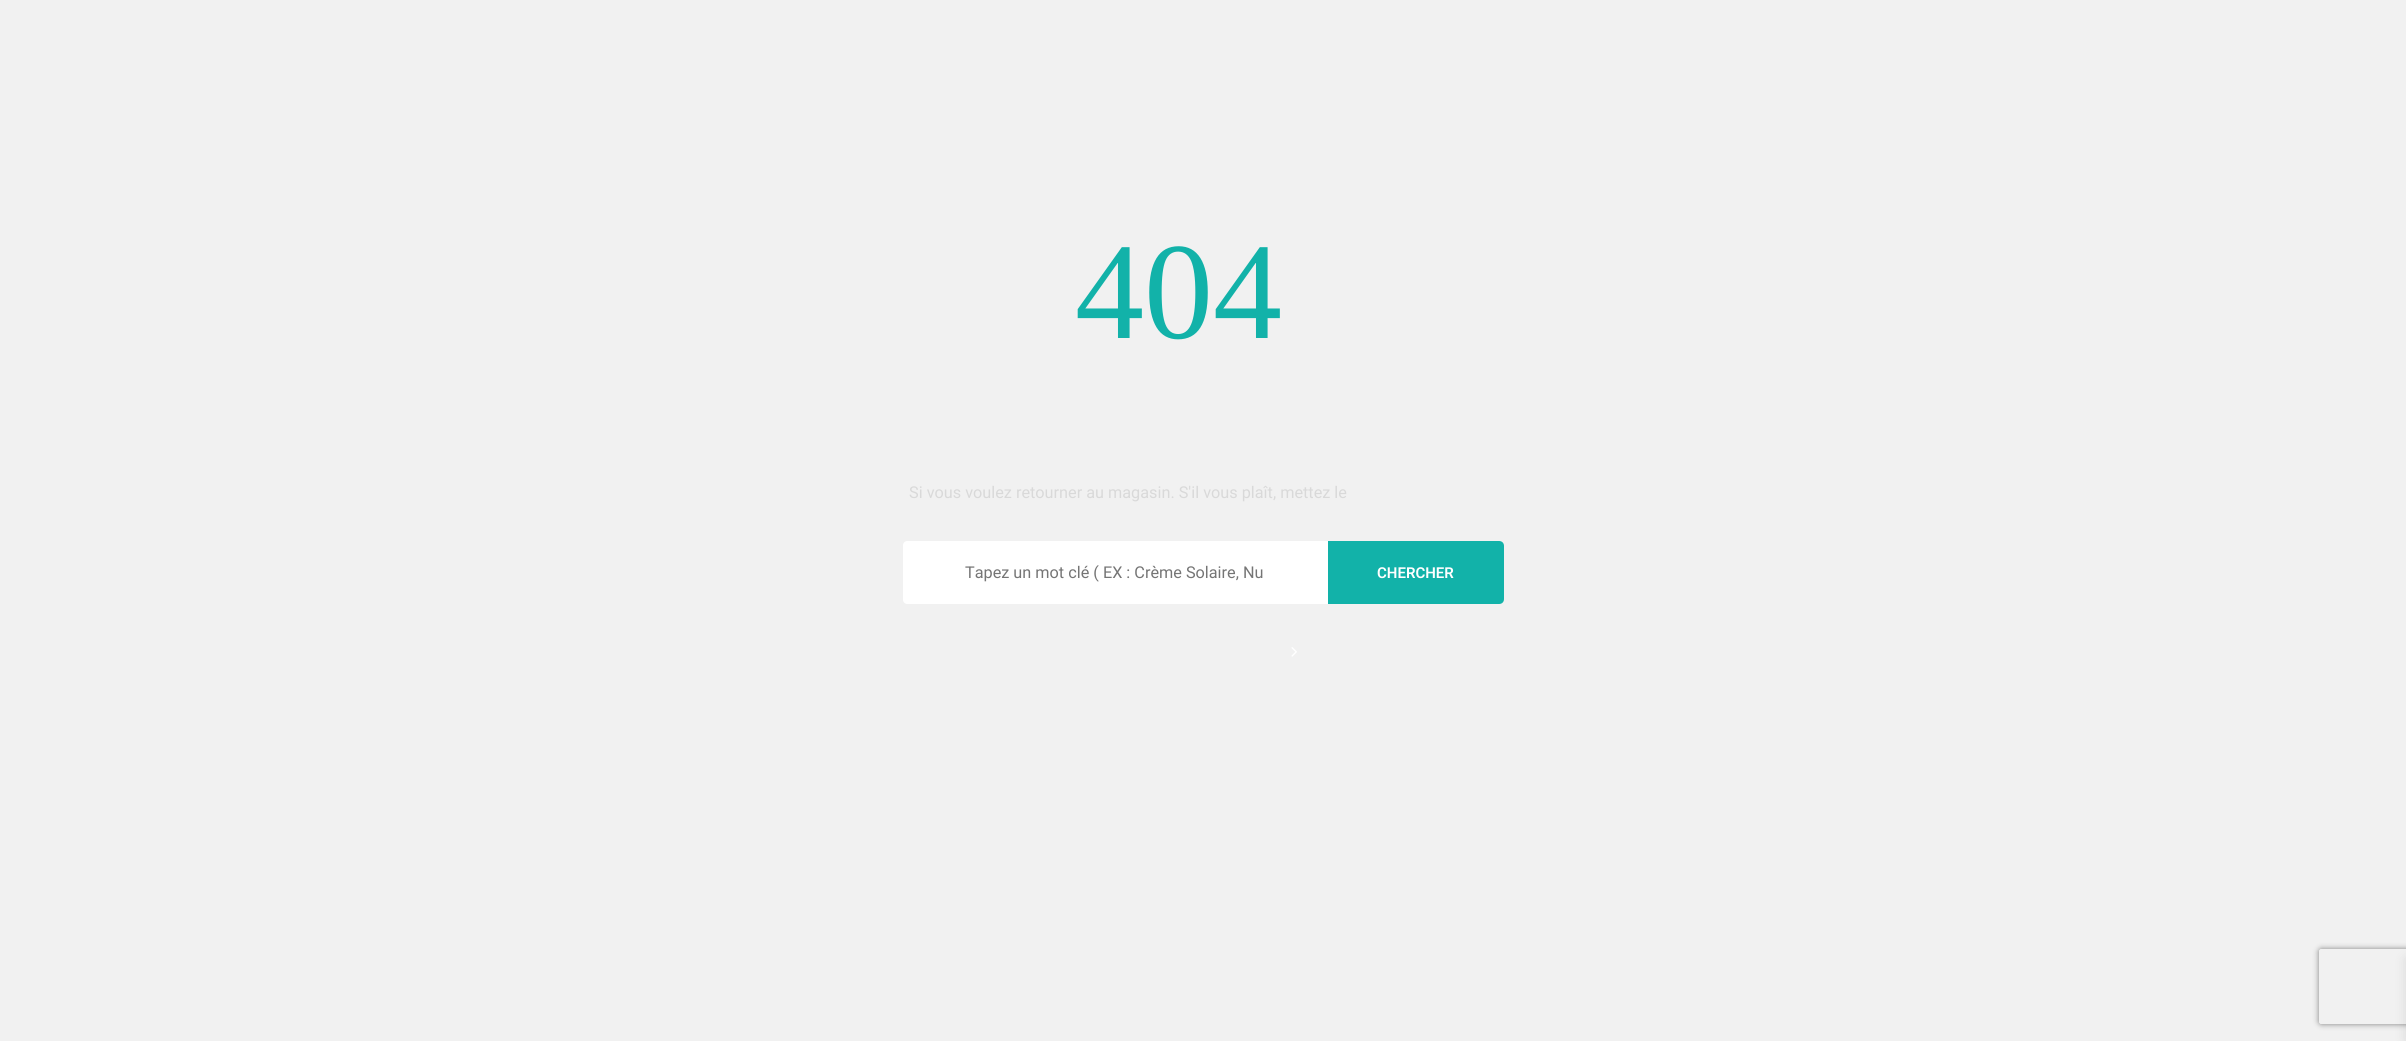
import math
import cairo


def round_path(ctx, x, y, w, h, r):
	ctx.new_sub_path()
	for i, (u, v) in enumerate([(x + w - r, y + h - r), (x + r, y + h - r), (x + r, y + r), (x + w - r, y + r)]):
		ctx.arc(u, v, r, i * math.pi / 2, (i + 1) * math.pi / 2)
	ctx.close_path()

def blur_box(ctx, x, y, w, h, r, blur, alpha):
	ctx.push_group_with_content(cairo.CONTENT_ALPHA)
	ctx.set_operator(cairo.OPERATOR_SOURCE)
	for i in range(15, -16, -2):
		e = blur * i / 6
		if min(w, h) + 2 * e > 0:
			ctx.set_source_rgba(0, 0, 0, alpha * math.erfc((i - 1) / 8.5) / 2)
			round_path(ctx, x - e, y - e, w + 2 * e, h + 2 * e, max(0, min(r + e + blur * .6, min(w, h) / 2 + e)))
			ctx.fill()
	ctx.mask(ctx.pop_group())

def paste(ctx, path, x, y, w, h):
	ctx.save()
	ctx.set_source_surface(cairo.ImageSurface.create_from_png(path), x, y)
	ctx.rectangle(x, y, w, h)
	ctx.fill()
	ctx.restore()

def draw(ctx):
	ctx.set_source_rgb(0.945, 0.945, 0.945)
	ctx.paint()
	ctx.select_font_face('Liberation Serif')
	ctx.set_font_size(138)
	ctx.set_source_rgb(0.071, 0.698, 0.663)
	ctx.move_to(1075, 338)
	ctx.show_text('404')
	ctx.select_font_face('Roboto')
	ctx.set_font_size(16.25)
	ctx.set_source_rgb(0.851, 0.851, 0.851)
	ctx.move_to(909, 498)
	ctx.show_text('Si vous voulez retourner au magasin. S\'il vous plaît, mettez le')
	ctx.set_source_rgb(1, 1, 1)
	ctx.new_path()
	ctx.move_to(907, 541)
	ctx.line_to(1328, 541)
	ctx.line_to(1328, 604)
	ctx.line_to(907, 604)
	ctx.curve_to(905, 604, 903, 602, 903, 600)
	ctx.line_to(903, 545)
	ctx.curve_to(903, 543, 905, 541, 907, 541)
	ctx.close_path()
	ctx.fill()
	ctx.set_source_rgb(0.459, 0.459, 0.459)
	ctx.move_to(965, 578)
	ctx.show_text('Tapez un mot clé ( EX : Crème Solaire, Nu')
	ctx.set_source_rgb(0.071, 0.698, 0.663)
	ctx.new_path()
	ctx.move_to(1328, 541)
	ctx.line_to(1499, 541)
	ctx.curve_to(1502, 541, 1504, 543, 1504, 546)
	ctx.line_to(1504, 599)
	ctx.curve_to(1504, 602, 1502, 604, 1499, 604)
	ctx.line_to(1328, 604)
	ctx.close_path()
	ctx.fill()
	ctx.select_font_face('Roboto SemiBold')
	ctx.set_font_size(15)
	ctx.set_source_rgb(1, 1, 1)
	ctx.move_to(1377, 578)
	ctx.show_text('CHERCHER')
	paste(ctx, 'media/1.png', 1291, 647, 6, 10)
	ctx.save()
	ctx.set_fill_rule(cairo.FILL_RULE_EVEN_ODD)
	ctx.new_path()
	ctx.move_to(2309, 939)
	ctx.line_to(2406, 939)
	ctx.line_to(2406, 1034)
	ctx.line_to(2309, 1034)
	ctx.close_path()
	ctx.move_to(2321.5, 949)
	ctx.line_to(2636.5, 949)
	ctx.curve_to(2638, 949, 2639, 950, 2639, 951.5)
	ctx.line_to(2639, 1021.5)
	ctx.curve_to(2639, 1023, 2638, 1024, 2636.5, 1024)
	ctx.line_to(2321.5, 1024)
	ctx.curve_to(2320, 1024, 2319, 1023, 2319, 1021.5)
	ctx.line_to(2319, 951.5)
	ctx.curve_to(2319, 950, 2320, 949, 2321.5, 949)
	ctx.close_path()
	ctx.clip()
	ctx.set_source_rgb(0.502, 0.502, 0.502)
	blur_box(ctx, 2319, 949, 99, 75, 2.5, 3, 1)
	ctx.restore()
	ctx.set_source_rgb(0, 0, 0)
	blur_box(ctx, 2406, 959, 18, 81, 0, 6, 0.1)


surface = cairo.ImageSurface(cairo.FORMAT_RGB24, 2406, 1041)
ctx = cairo.Context(surface)
options = cairo.FontOptions()
options.set_hint_metrics(cairo.HINT_METRICS_OFF)
options.set_hint_style(cairo.HINT_STYLE_NONE)
ctx.set_font_options(options)
ctx.set_miter_limit(4)
draw(ctx)
surface.write_to_png('image.png')
